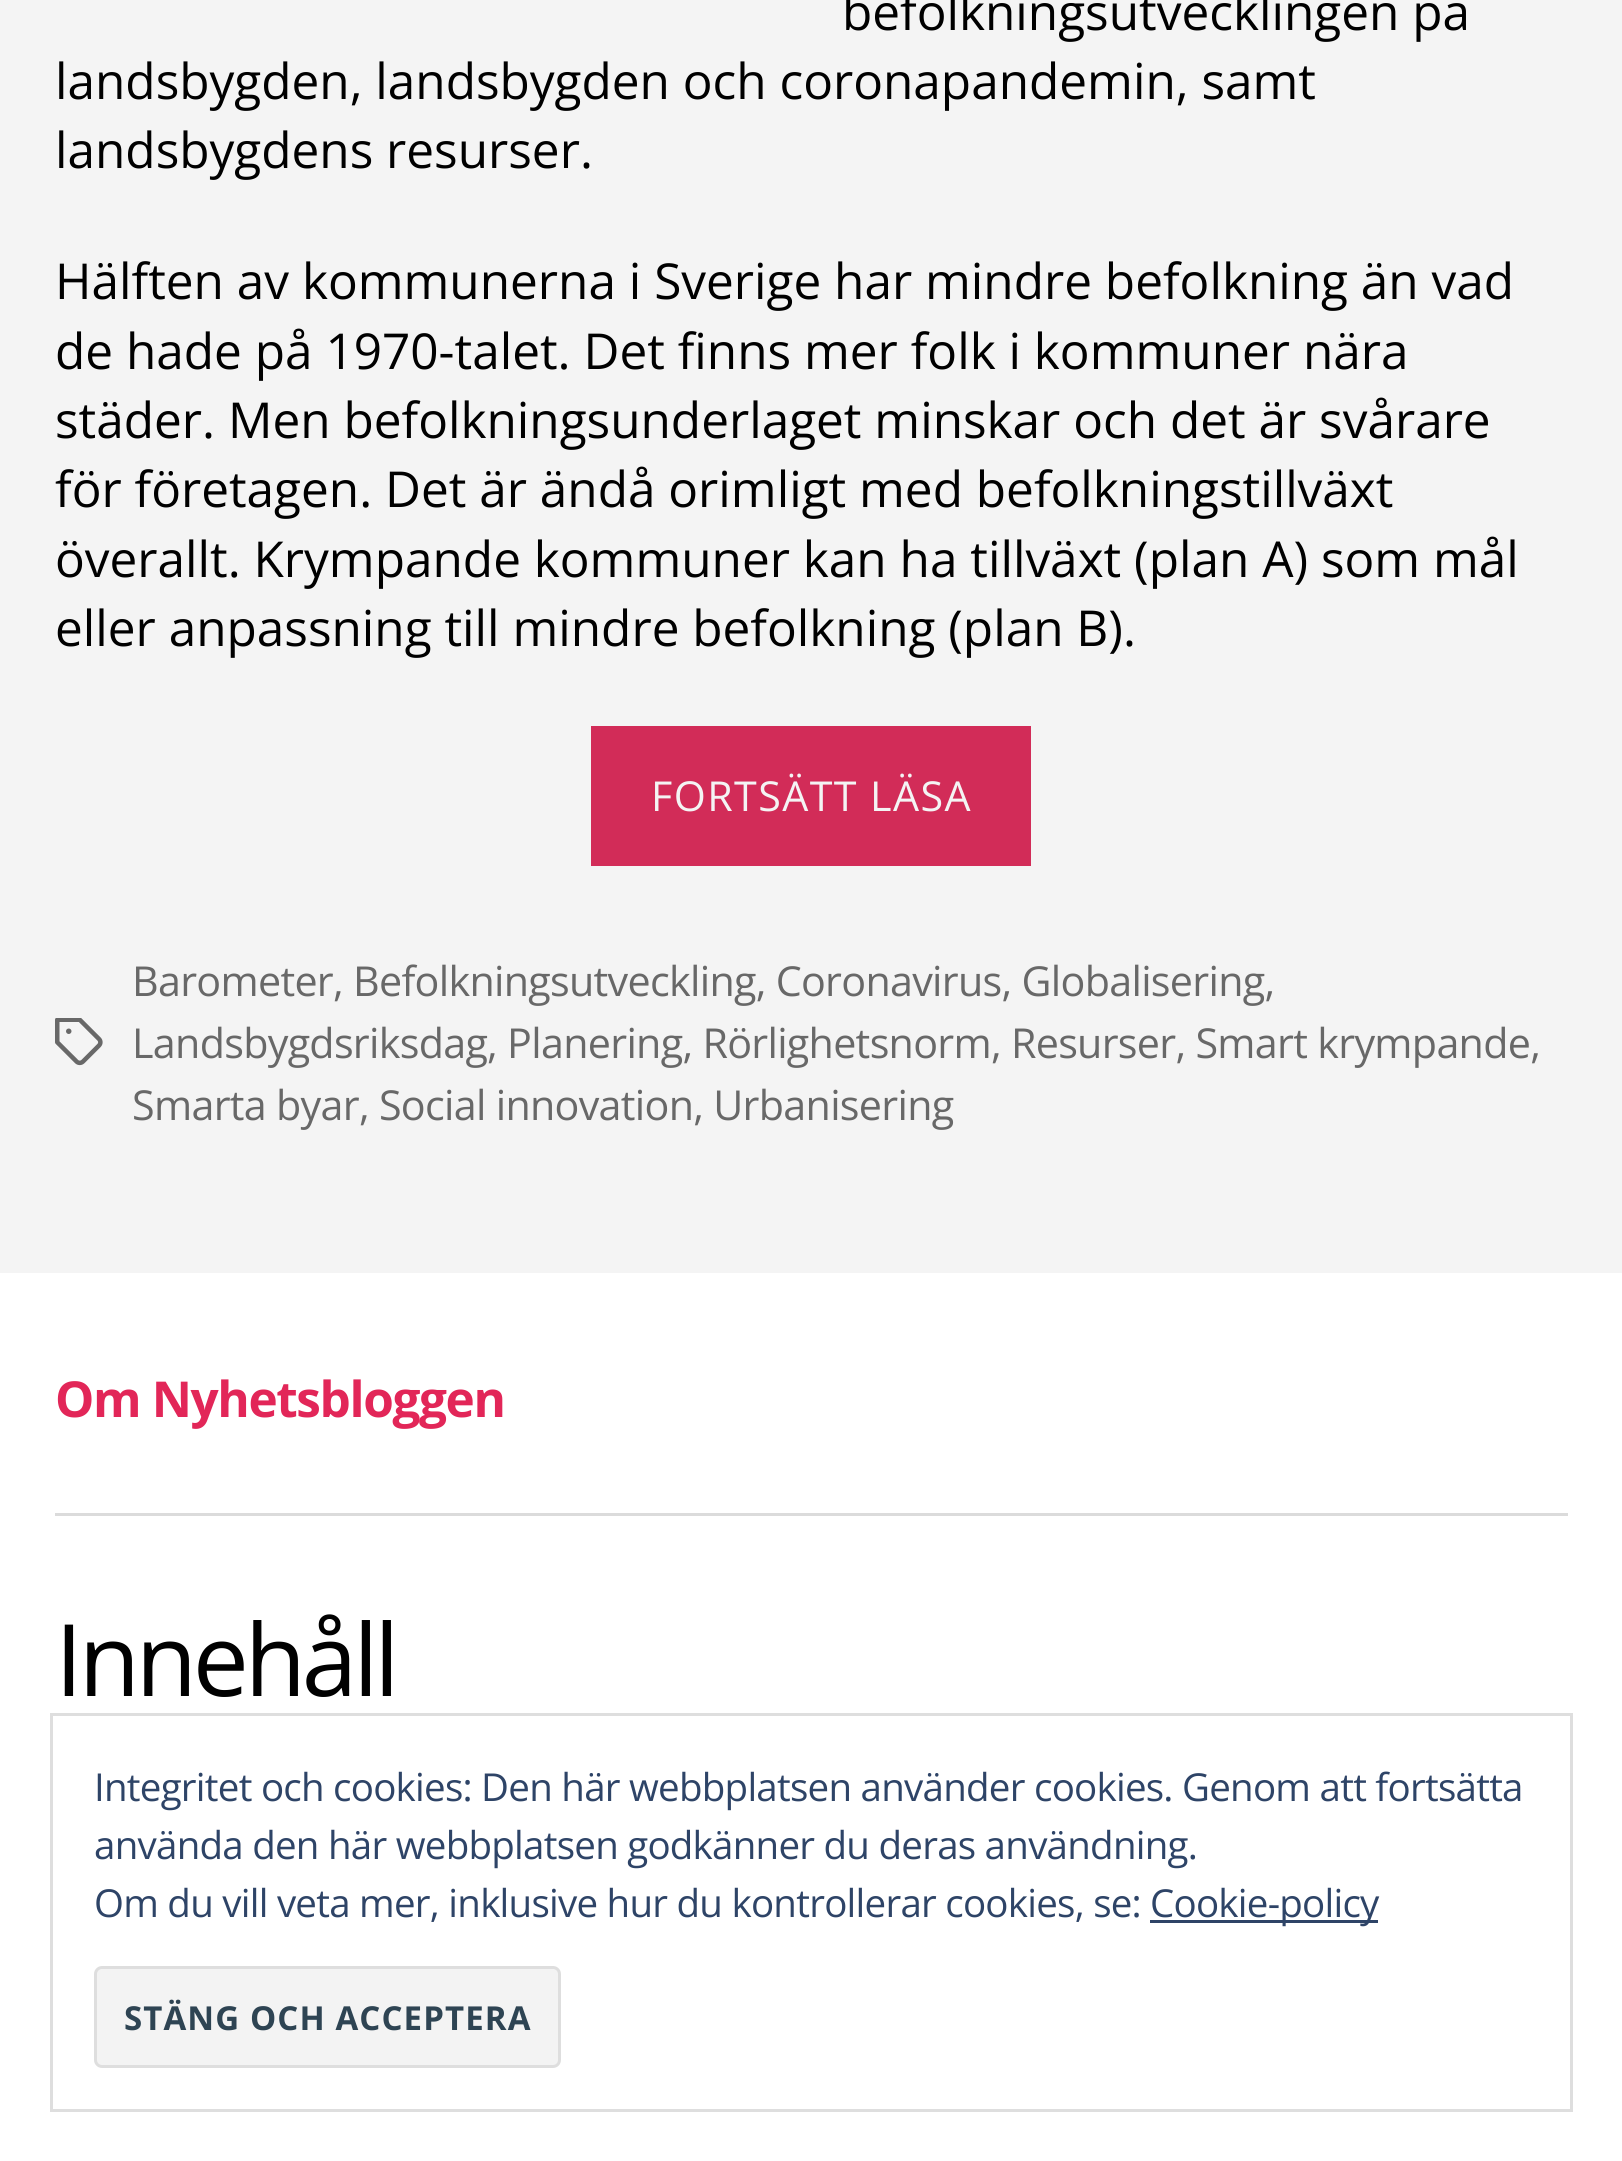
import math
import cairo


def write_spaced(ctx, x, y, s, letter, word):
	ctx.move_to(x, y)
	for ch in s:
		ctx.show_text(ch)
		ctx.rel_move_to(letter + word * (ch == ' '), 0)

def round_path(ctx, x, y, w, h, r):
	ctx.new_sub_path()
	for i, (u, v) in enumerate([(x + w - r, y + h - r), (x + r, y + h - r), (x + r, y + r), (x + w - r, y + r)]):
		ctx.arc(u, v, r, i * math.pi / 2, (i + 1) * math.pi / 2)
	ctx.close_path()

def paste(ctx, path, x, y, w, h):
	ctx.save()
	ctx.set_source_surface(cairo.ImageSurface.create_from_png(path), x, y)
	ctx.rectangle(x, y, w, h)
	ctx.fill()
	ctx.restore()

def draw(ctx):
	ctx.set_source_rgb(0.957, 0.957, 0.957)
	ctx.paint()
	ctx.select_font_face('Open Sans')
	ctx.set_font_size(49.5)
	ctx.set_source_rgb(0, 0, 0)
	for x, y, s in [
		(842, 30, 'befolkningsutvecklingen på'),
		(55, 99, 'landsbygden, landsbygden och coronapandemin, samt'),
		(55, 168, 'landsbygdens resurser.'),
		(55, 299, 'Hälften av kommunerna i Sverige har mindre befolkning än vad'),
		(55, 369, 'de hade på 1970-talet. Det finns mer folk i kommuner nära'),
		(55, 438, 'städer. Men befolkningsunderlaget minskar och det är svårare'),
		(55, 507, 'för företagen. Det är ändå orimligt med befolkningstillväxt'),
		(55, 577, 'överallt. Krympande kommuner kan ha tillväxt (plan A) som mål'),
		(55, 646, 'eller anpassning till mindre befolkning (plan B).'),
	]:
		ctx.move_to(x, y)
		ctx.show_text(s)
	ctx.set_source_rgb(0.824, 0.173, 0.345)
	ctx.rectangle(591, 726, 440, 140)
	ctx.fill()
	ctx.set_font_size(41.25)
	ctx.set_source_rgb(0.957, 0.957, 0.957)
	write_spaced(ctx, 651, 811, 'FORTSÄTT LÄSA', 1.4, 0)
	paste(ctx, 'media/1.png', 55, 1018, 48, 48)
	ctx.set_source_rgb(0.408, 0.408, 0.408)
	for x, y, s in [
		(132, 996, 'Barometer, Befolkningsutveckling, Coronavirus, Globalisering,'),
		(132, 1058, 'Landsbygdsriksdag, Planering, Rörlighetsnorm, Resurser, Smart krympande,'),
		(132, 1120, 'Smarta byar, Social innovation, Urbanisering'),
	]:
		write_spaced(ctx, x, y, s, -0.7, 0)
	ctx.set_source_rgb(1, 1, 1)
	ctx.rectangle(0, 1273, 1622, 888)
	ctx.fill()
	ctx.set_source_rgb(0.859, 0.859, 0.859)
	ctx.rectangle(55, 1513, 1513, 3)
	ctx.fill()
	ctx.select_font_face('Open Sans', cairo.FONT_SLANT_NORMAL, cairo.FONT_WEIGHT_BOLD)
	ctx.set_font_size(49.5)
	ctx.set_source_rgb(0.886, 0.149, 0.345)
	write_spaced(ctx, 55, 1417, 'Om Nyhetsbloggen', -1.4, 0)
	ctx.select_font_face('Open Sans')
	ctx.set_font_size(100)
	ctx.set_source_rgb(0, 0, 0)
	write_spaced(ctx, 55, 1696, 'Innehåll', -4.25, 0)
	ctx.rectangle(51.5, 1714.5, 1520, 396)
	ctx.set_source_rgb(0.871, 0.871, 0.871)
	ctx.set_line_width(3)
	ctx.stroke()
	ctx.set_font_size(38.5)
	ctx.set_source_rgb(0.18, 0.267, 0.404)
	for x, y, s in [
		(94, 1801, 'Integritet och cookies: Den här webbplatsen använder cookies. Genom att fortsätta'),
		(94, 1859, 'använda den här webbplatsen godkänner du deras användning.'),
		(94, 1917, 'Om du vill veta mer, inklusive hur du kontrollerar cookies, se:'),
	]:
		write_spaced(ctx, x, y, s, -0.75, 0)
	ctx.rectangle(1150, 1920, 228, 3)
	ctx.fill()
	write_spaced(ctx, 1150, 1917, 'Cookie-policy', -0.75, 0)
	ctx.set_source_rgb(0.953, 0.953, 0.953)
	round_path(ctx, 95.5, 1967.5, 464, 99, 6.5)
	ctx.fill_preserve()
	ctx.set_source_rgb(0.871, 0.871, 0.871)
	ctx.stroke()
	ctx.select_font_face('Open Sans', cairo.FONT_SLANT_NORMAL, cairo.FONT_WEIGHT_BOLD)
	ctx.set_font_size(33)
	ctx.set_source_rgb(0.18, 0.267, 0.325)
	write_spaced(ctx, 124, 2030, 'STÄNG OCH ACCEPTERA', 1.1, 0)


surface = cairo.ImageSurface(cairo.FORMAT_RGB24, 1622, 2161)
ctx = cairo.Context(surface)
options = cairo.FontOptions()
options.set_hint_metrics(cairo.HINT_METRICS_OFF)
options.set_hint_style(cairo.HINT_STYLE_NONE)
ctx.set_font_options(options)
ctx.set_miter_limit(4)
draw(ctx)
surface.write_to_png('image.png')
